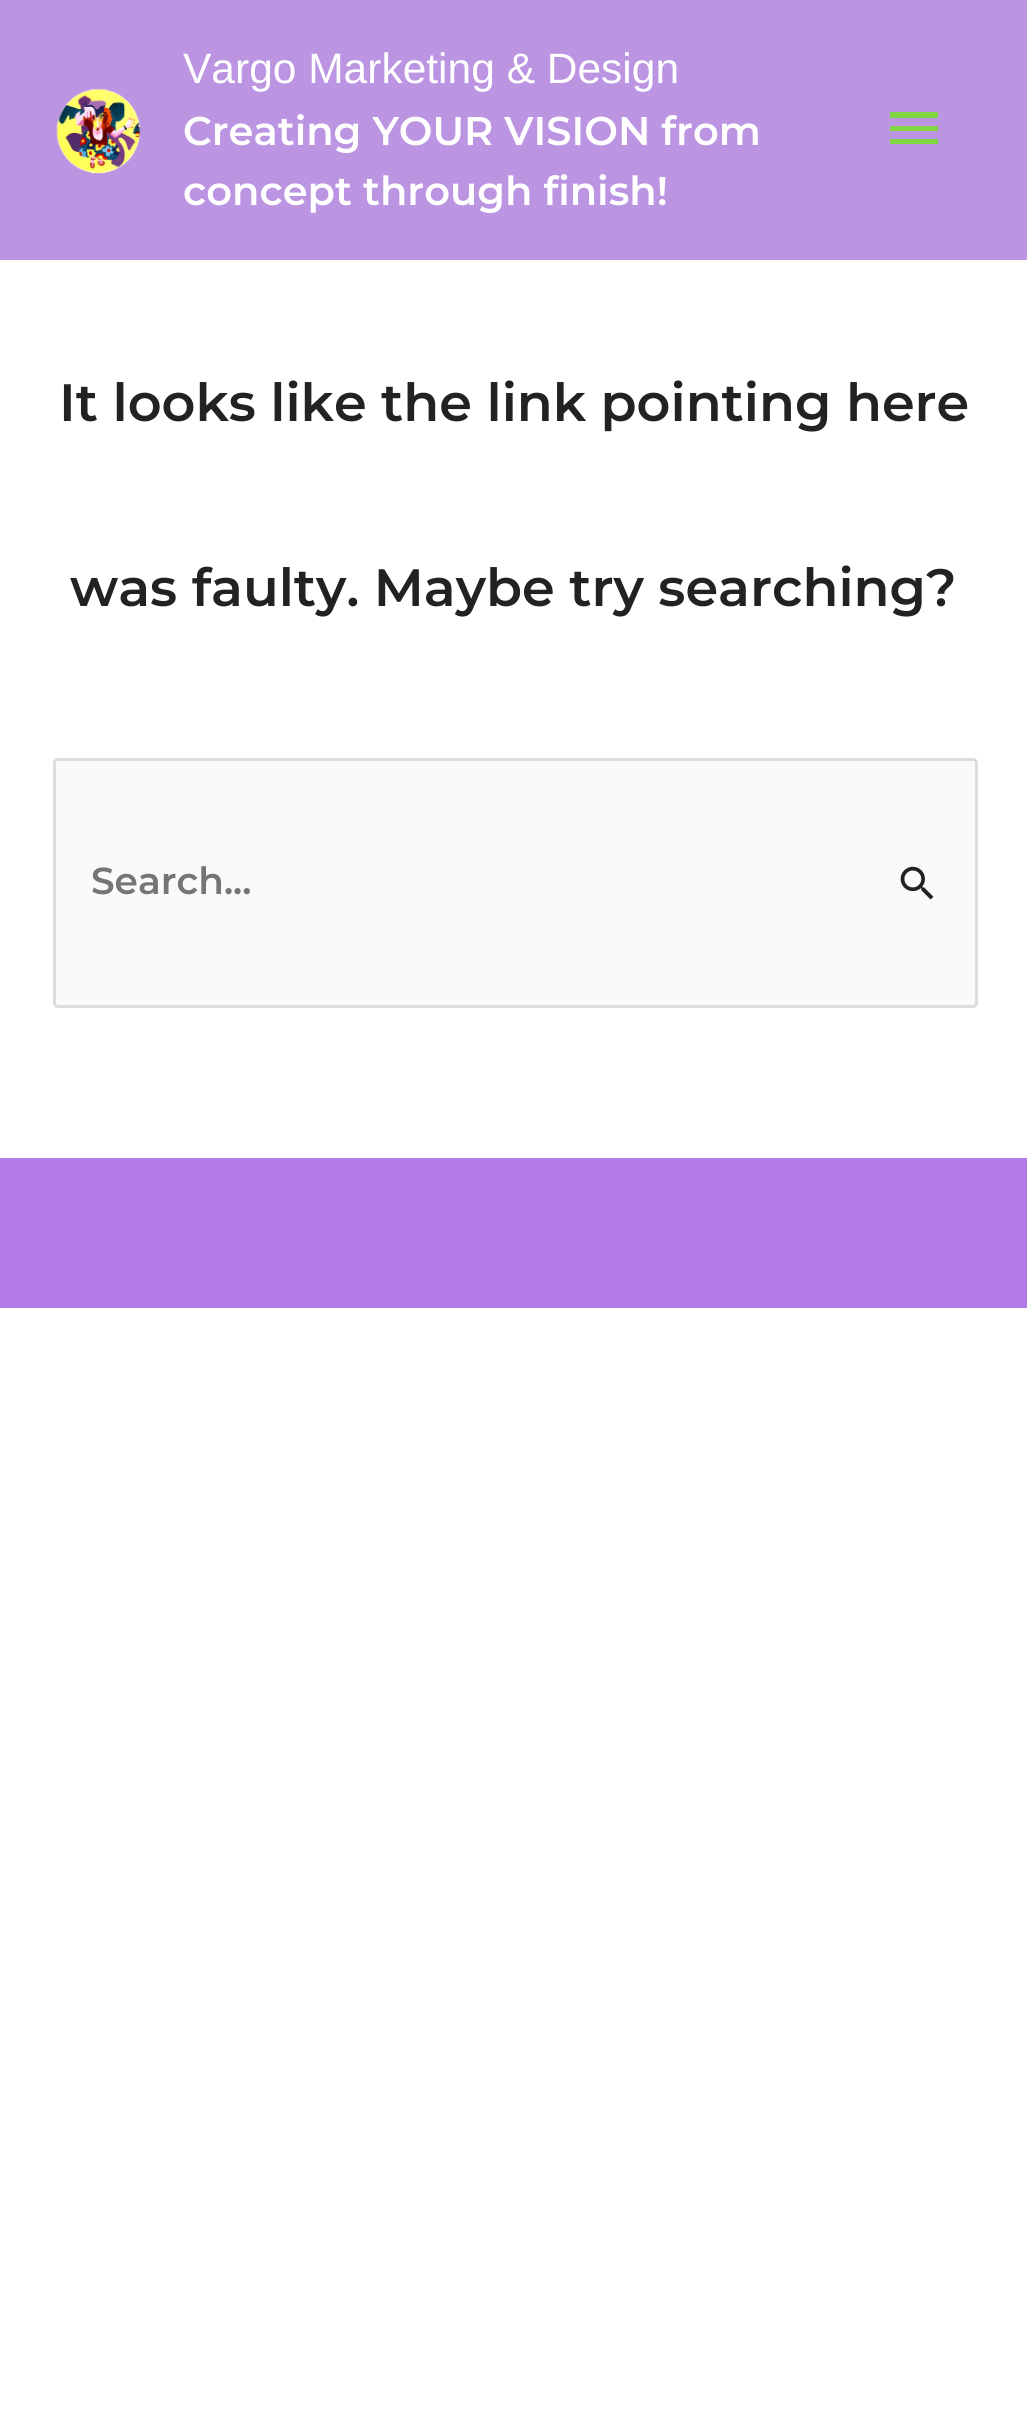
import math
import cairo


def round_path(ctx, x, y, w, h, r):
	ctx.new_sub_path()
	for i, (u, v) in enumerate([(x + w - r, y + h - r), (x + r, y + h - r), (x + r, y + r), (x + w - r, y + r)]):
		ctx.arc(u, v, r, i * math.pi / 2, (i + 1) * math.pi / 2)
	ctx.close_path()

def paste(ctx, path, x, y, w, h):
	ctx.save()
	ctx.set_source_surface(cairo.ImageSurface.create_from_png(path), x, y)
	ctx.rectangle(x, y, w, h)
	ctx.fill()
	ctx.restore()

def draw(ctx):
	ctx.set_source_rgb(1, 1, 1)
	ctx.paint()
	ctx.set_source_rgb(0.737, 0.584, 0.886)
	ctx.rectangle(0, 0, 1027, 260)
	ctx.fill()
	paste(ctx, 'media/1.png', 56, 88, 85, 86)
	ctx.select_font_face('Liberation Sans')
	ctx.set_font_size(42.5)
	ctx.set_source_rgb(1, 1, 1)
	ctx.move_to(183, 83)
	ctx.show_text('Vargo Marketing & Design')
	ctx.select_font_face('Montserrat Thin')
	ctx.set_font_size(40)
	ctx.move_to(183, 145)
	ctx.show_text('Creating YOUR VISION from')
	ctx.move_to(183, 205)
	ctx.show_text('concept through finish!')
	ctx.set_source_rgb(0.506, 0.843, 0.259)
	ctx.new_path()
	ctx.move_to(890, 112)
	ctx.line_to(938, 112)
	ctx.line_to(938, 118)
	ctx.line_to(890, 118)
	ctx.close_path()
	ctx.move_to(890, 131)
	ctx.line_to(890, 126)
	ctx.line_to(938, 126)
	ctx.line_to(938, 131)
	ctx.close_path()
	ctx.move_to(890, 144)
	ctx.line_to(890, 139)
	ctx.line_to(938, 139)
	ctx.line_to(938, 144)
	ctx.close_path()
	ctx.fill()
	ctx.set_font_size(52.5)
	ctx.set_source_rgb(0.133, 0.133, 0.133)
	ctx.move_to(59, 421)
	ctx.show_text('It looks like the link pointing here')
	ctx.move_to(70, 606)
	ctx.show_text('was faulty. Maybe try searching?')
	ctx.set_source_rgb(0.98, 0.98, 0.98)
	round_path(ctx, 54.5, 759.5, 922, 247, 3.5)
	ctx.fill_preserve()
	ctx.set_source_rgb(0.867, 0.867, 0.867)
	ctx.set_line_width(3)
	ctx.stroke()
	ctx.set_font_size(37.5)
	ctx.set_source_rgb(0.459, 0.459, 0.459)
	ctx.move_to(91, 894)
	ctx.show_text('Search...')
	paste(ctx, 'media/2.png', 900, 866, 34, 34)
	ctx.set_source_rgb(0.698, 0.482, 0.91)
	ctx.rectangle(0, 1158, 1027, 150)
	ctx.fill()


surface = cairo.ImageSurface(cairo.FORMAT_RGB24, 1027, 2423)
ctx = cairo.Context(surface)
options = cairo.FontOptions()
options.set_hint_metrics(cairo.HINT_METRICS_OFF)
options.set_hint_style(cairo.HINT_STYLE_NONE)
ctx.set_font_options(options)
ctx.set_miter_limit(4)
draw(ctx)
surface.write_to_png('image.png')
